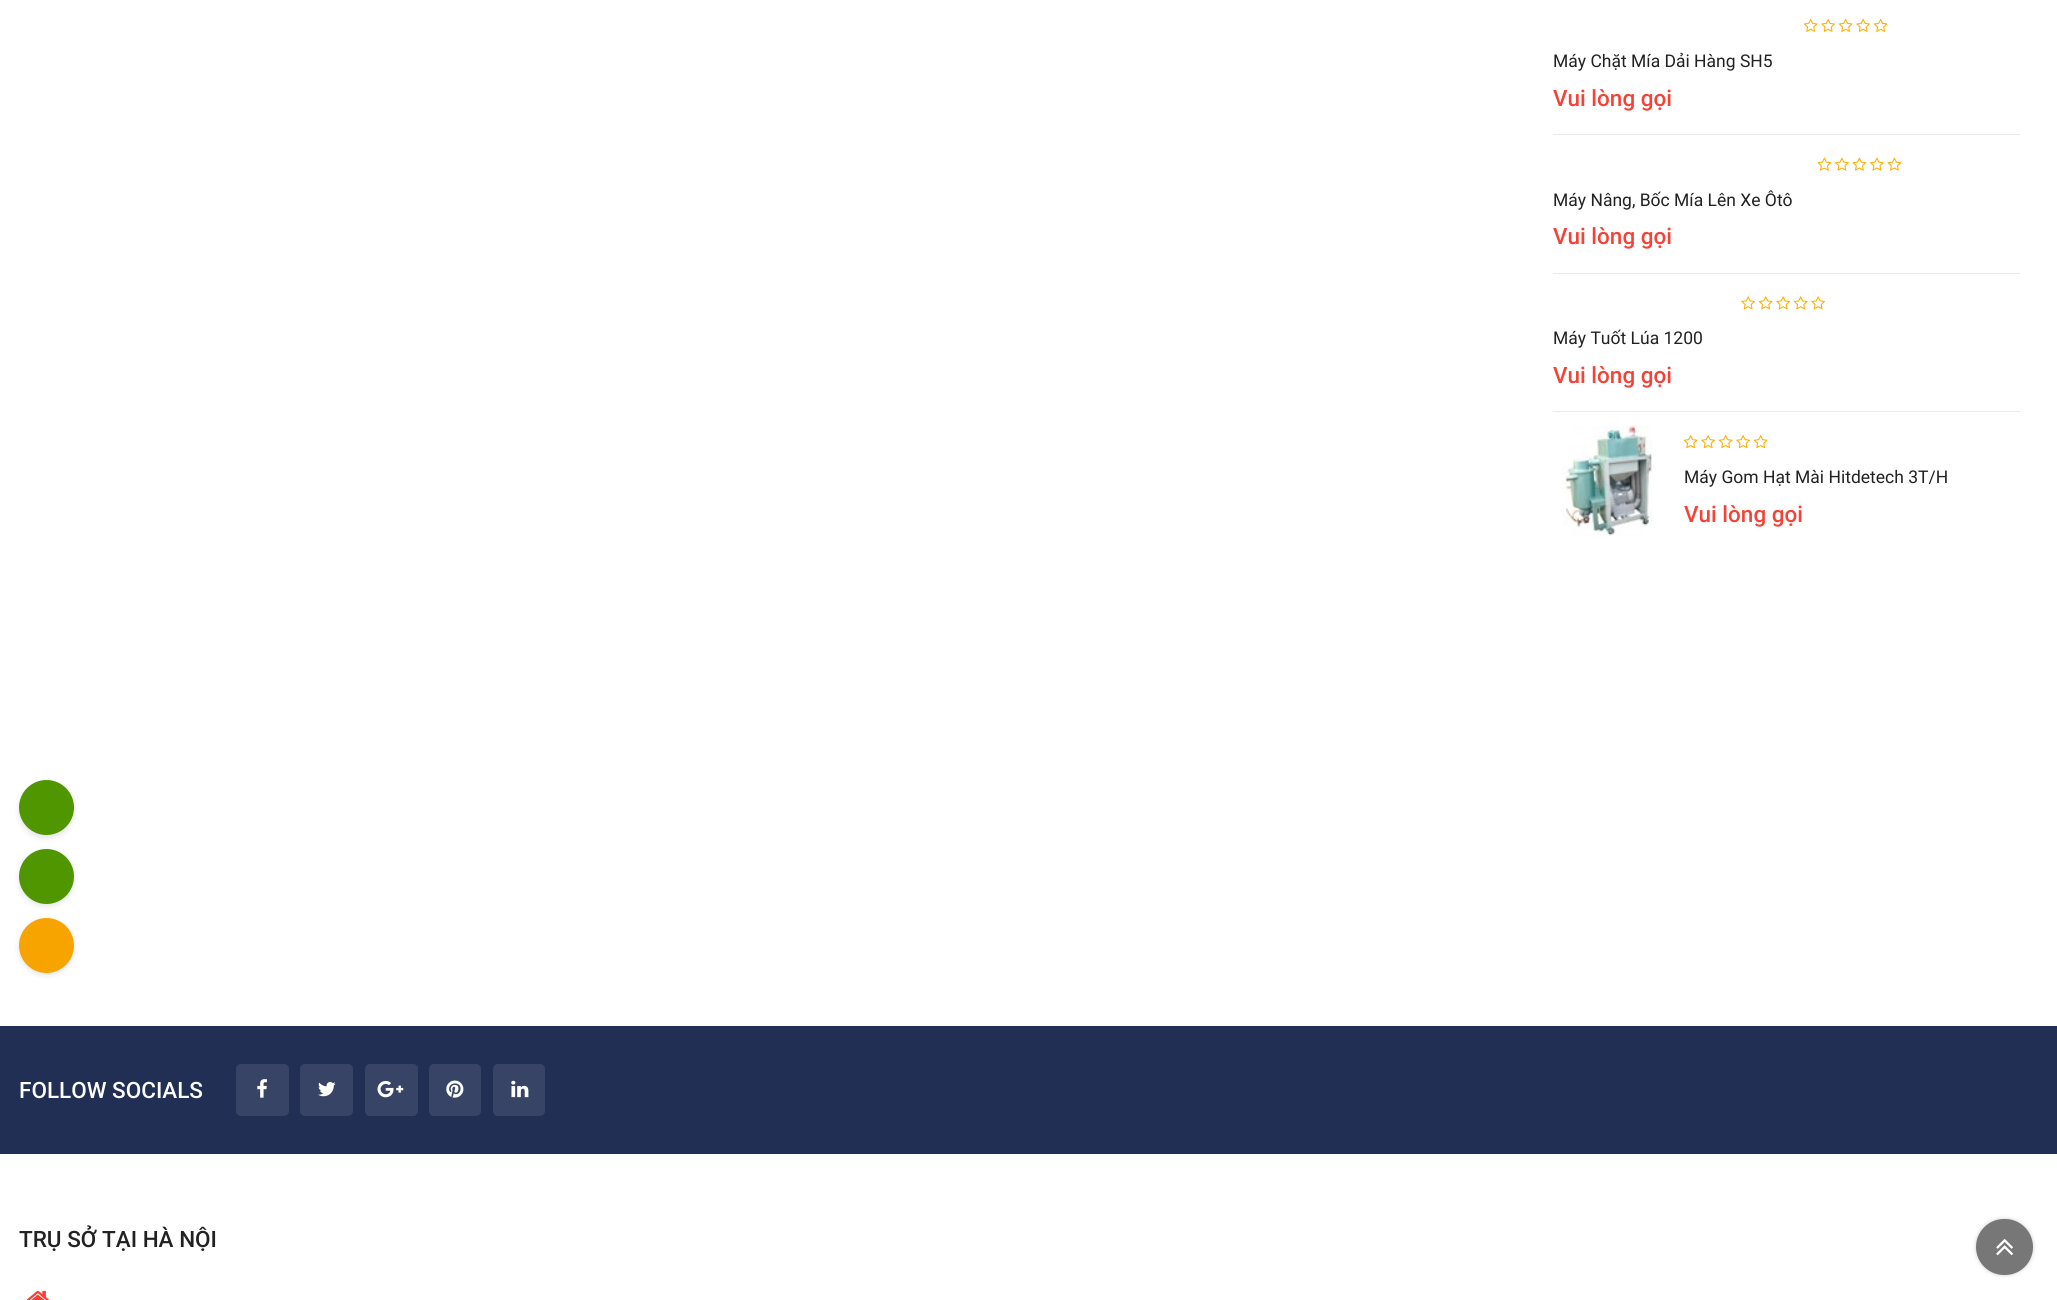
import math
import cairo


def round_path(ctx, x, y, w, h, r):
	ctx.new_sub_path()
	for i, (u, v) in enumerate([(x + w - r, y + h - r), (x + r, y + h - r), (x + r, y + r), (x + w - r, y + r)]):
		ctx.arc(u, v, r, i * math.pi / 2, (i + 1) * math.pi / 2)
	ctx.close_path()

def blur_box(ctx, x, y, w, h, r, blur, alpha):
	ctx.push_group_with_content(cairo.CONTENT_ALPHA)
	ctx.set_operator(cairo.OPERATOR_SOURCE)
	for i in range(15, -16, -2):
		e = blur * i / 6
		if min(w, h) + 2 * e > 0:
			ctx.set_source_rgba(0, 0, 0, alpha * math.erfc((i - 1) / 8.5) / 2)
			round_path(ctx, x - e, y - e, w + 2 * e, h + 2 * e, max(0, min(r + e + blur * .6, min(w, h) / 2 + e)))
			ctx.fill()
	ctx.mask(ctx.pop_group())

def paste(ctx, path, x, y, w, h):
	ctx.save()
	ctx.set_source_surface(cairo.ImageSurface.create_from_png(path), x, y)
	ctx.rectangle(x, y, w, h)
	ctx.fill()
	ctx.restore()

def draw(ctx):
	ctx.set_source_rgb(1, 1, 1)
	ctx.paint()
	ctx.set_source_rgb(0.918, 0.918, 0.918)
	ctx.rectangle(1553, 134, 467, 1)
	ctx.fill()
	paste(ctx, 'media/1.png', 1803, 18, 15, 14)
	paste(ctx, 'media/2.png', 1821, 18, 14, 14)
	paste(ctx, 'media/1.png', 1838, 18, 15, 14)
	paste(ctx, 'media/2.png', 1856, 18, 14, 14)
	paste(ctx, 'media/1.png', 1873, 18, 15, 14)
	ctx.select_font_face('Roboto')
	ctx.set_font_size(17.5)
	ctx.set_source_rgb(0.133, 0.133, 0.133)
	ctx.move_to(1553, 67)
	ctx.show_text('Máy Chặt Mía Dải Hàng SH5')
	ctx.select_font_face('Roboto Medium')
	ctx.set_font_size(22.5)
	ctx.set_source_rgb(0.957, 0.263, 0.212)
	ctx.move_to(1553, 106)
	ctx.show_text('Vui lòng gọi')
	ctx.set_source_rgb(0.918, 0.918, 0.918)
	ctx.rectangle(1553, 273, 467, 1)
	ctx.fill()
	paste(ctx, 'media/3.png', 1817, 157, 15, 14)
	paste(ctx, 'media/4.png', 1835, 157, 14, 14)
	paste(ctx, 'media/3.png', 1852, 157, 15, 14)
	paste(ctx, 'media/4.png', 1870, 157, 14, 14)
	paste(ctx, 'media/3.png', 1887, 157, 15, 14)
	ctx.select_font_face('Roboto')
	ctx.set_font_size(17.5)
	ctx.set_source_rgb(0.133, 0.133, 0.133)
	ctx.move_to(1553, 206)
	ctx.show_text('Máy Nâng, Bốc Mía Lên Xe Ôtô')
	ctx.select_font_face('Roboto Medium')
	ctx.set_font_size(22.5)
	ctx.set_source_rgb(0.957, 0.263, 0.212)
	ctx.move_to(1553, 244)
	ctx.show_text('Vui lòng gọi')
	ctx.set_source_rgb(0.918, 0.918, 0.918)
	ctx.rectangle(1553, 411, 467, 1)
	ctx.fill()
	paste(ctx, 'media/5.png', 1741, 296, 14, 14)
	paste(ctx, 'media/6.png', 1758, 296, 15, 14)
	paste(ctx, 'media/5.png', 1776, 296, 14, 14)
	paste(ctx, 'media/6.png', 1793, 296, 15, 14)
	paste(ctx, 'media/5.png', 1811, 296, 14, 14)
	ctx.select_font_face('Roboto')
	ctx.set_font_size(17.5)
	ctx.set_source_rgb(0.133, 0.133, 0.133)
	ctx.move_to(1553, 344)
	ctx.show_text('Máy Tuốt Lúa 1200')
	ctx.select_font_face('Roboto Medium')
	ctx.set_font_size(22.5)
	ctx.set_source_rgb(0.957, 0.263, 0.212)
	ctx.move_to(1553, 383)
	ctx.show_text('Vui lòng gọi')
	paste(ctx, 'media/7.png', 1562, 425, 91, 111)
	paste(ctx, 'media/8.png', 1683, 435, 15, 14)
	paste(ctx, 'media/9.png', 1701, 435, 14, 14)
	paste(ctx, 'media/8.png', 1718, 435, 15, 14)
	paste(ctx, 'media/9.png', 1736, 435, 14, 14)
	paste(ctx, 'media/8.png', 1753, 435, 15, 14)
	ctx.select_font_face('Roboto')
	ctx.set_font_size(17.5)
	ctx.set_source_rgb(0.133, 0.133, 0.133)
	ctx.move_to(1684, 483)
	ctx.show_text('Máy Gom Hạt Mài Hitdetech 3T/H')
	ctx.select_font_face('Roboto Medium')
	ctx.set_font_size(22.5)
	ctx.set_source_rgb(0.957, 0.263, 0.212)
	ctx.move_to(1684, 522)
	ctx.show_text('Vui lòng gọi')
	ctx.set_source_rgb(0.133, 0.184, 0.333)
	ctx.rectangle(0, 1026, 2057, 128)
	ctx.fill()
	ctx.set_source_rgb(1, 1, 1)
	ctx.move_to(19, 1098)
	ctx.show_text('FOLLOW SOCIALS')
	ctx.set_source_rgb(0.22, 0.267, 0.4)
	round_path(ctx, 236, 1064, 53, 52, 5)
	ctx.fill()
	paste(ctx, 'media/10.png', 257, 1079, 10, 19)
	round_path(ctx, 300, 1064, 53, 52, 5)
	ctx.fill()
	paste(ctx, 'media/11.png', 318, 1082, 18, 15)
	round_path(ctx, 365, 1064, 53, 52, 5)
	ctx.fill()
	paste(ctx, 'media/12.png', 377, 1080, 27, 18)
	round_path(ctx, 429, 1064, 52, 52, 5)
	ctx.fill()
	paste(ctx, 'media/13.png', 446, 1080, 18, 18)
	round_path(ctx, 493, 1064, 52, 52, 5)
	ctx.fill()
	paste(ctx, 'media/14.png', 511, 1080, 18, 18)
	ctx.set_source_rgb(0.133, 0.133, 0.133)
	ctx.move_to(19, 1247)
	ctx.show_text('TRỤ SỞ TẠI HÀ NỘI')
	paste(ctx, 'media/15.png', 26, 1290, 23, 10)
	ctx.set_source_rgb(0.8, 0.8, 0.8)
	blur_box(ctx, 1976, 1219, 57, 56, 28, 2, 1)
	ctx.set_source_rgb(0.467, 0.467, 0.467)
	round_path(ctx, 1976, 1219, 57, 56, 28)
	ctx.fill()
	paste(ctx, 'media/16.png', 1996, 1239, 17, 17)
	ctx.set_source_rgb(0, 0, 0)
	blur_box(ctx, 19, 783, 55, 55, 27.5, 3, 0.11)
	ctx.set_source_rgb(0.314, 0.588, 0)
	ctx.arc(46.5, 807.5, 27.5, 0, 2 * math.pi)
	ctx.fill()
	ctx.set_source_rgb(0, 0, 0)
	blur_box(ctx, 19, 851, 55, 55, 27.5, 3, 0.11)
	ctx.set_source_rgb(0.314, 0.588, 0)
	ctx.arc(46.5, 876.5, 27.5, 0, 2 * math.pi)
	ctx.fill()
	ctx.set_source_rgb(0, 0, 0)
	blur_box(ctx, 19, 920, 55, 55, 27.5, 3, 0.11)
	ctx.set_source_rgb(0.969, 0.643, 0)
	ctx.arc(46.5, 945.5, 27.5, 0, 2 * math.pi)
	ctx.fill()


surface = cairo.ImageSurface(cairo.FORMAT_RGB24, 2057, 1300)
ctx = cairo.Context(surface)
options = cairo.FontOptions()
options.set_hint_metrics(cairo.HINT_METRICS_OFF)
options.set_hint_style(cairo.HINT_STYLE_NONE)
ctx.set_font_options(options)
ctx.set_miter_limit(4)
draw(ctx)
surface.write_to_png('image.png')
